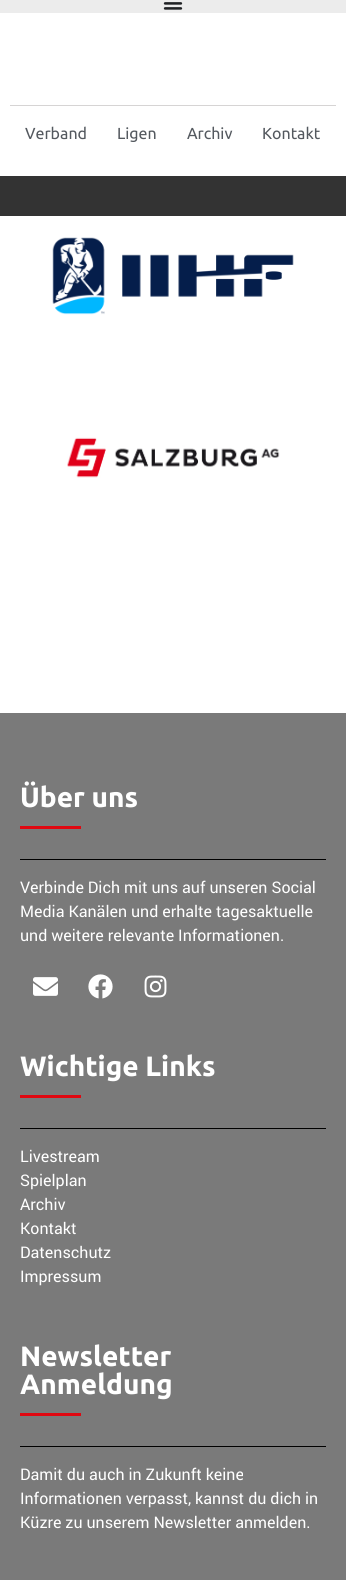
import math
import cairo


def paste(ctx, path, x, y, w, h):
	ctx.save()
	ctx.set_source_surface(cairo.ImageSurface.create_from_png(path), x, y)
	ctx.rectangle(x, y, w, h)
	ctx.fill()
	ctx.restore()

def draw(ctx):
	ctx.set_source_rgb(1, 1, 1)
	ctx.paint()
	ctx.set_source_rgb(0.925, 0.925, 0.925)
	ctx.rectangle(0, 0, 346, 13)
	ctx.fill()
	paste(ctx, 'media/1.png', 163, 2, 20, 8)
	ctx.set_source_rgb(0.839, 0.831, 0.831)
	ctx.rectangle(10, 105, 326, 1)
	ctx.fill()
	ctx.select_font_face('Ubuntu')
	ctx.set_font_size(16)
	ctx.set_source_rgb(0.329, 0.349, 0.373)
	for x, y, s in [
		(25, 139, 'Verband'),
		(117, 139, 'Ligen'),
		(187, 139, 'Archiv'),
		(262, 139, 'Kontakt'),
	]:
		ctx.move_to(x, y)
		ctx.show_text(s)
	ctx.set_source_rgb(0.2, 0.2, 0.2)
	ctx.rectangle(0, 176, 346, 40)
	ctx.fill()
	paste(ctx, 'media/2.png', 52, 237, 242, 78)
	paste(ctx, 'media/3.png', 67, 437, 213, 41)
	ctx.set_source_rgb(0.478, 0.478, 0.478)
	ctx.rectangle(0, 713, 346, 867)
	ctx.fill()
	ctx.select_font_face('Ubuntu', cairo.FONT_SLANT_NORMAL, cairo.FONT_WEIGHT_BOLD)
	ctx.set_font_size(28)
	ctx.set_source_rgb(1, 1, 1)
	ctx.move_to(20, 807)
	ctx.show_text('Über uns')
	ctx.set_source_rgb(0.878, 0.031, 0.063)
	ctx.rectangle(20, 826, 61, 3)
	ctx.fill()
	ctx.set_source_rgb(0, 0, 0)
	ctx.rectangle(20, 859, 306, 1)
	ctx.fill()
	ctx.select_font_face('Roboto')
	ctx.set_font_size(16)
	ctx.set_source_rgb(1, 1, 1)
	for x, y, s in [
		(20, 893, 'Verbinde Dich mit uns auf unseren Social'),
		(20, 917, 'Media Kanälen und erhalte tagesaktuelle'),
		(20, 941, 'und weitere relevante Informationen.'),
	]:
		ctx.move_to(x, y)
		ctx.show_text(s)
	paste(ctx, 'media/4.png', 33, 977, 25, 19)
	paste(ctx, 'media/5.png', 88, 974, 25, 25)
	paste(ctx, 'media/6.png', 144, 975, 23, 23)
	ctx.select_font_face('Ubuntu', cairo.FONT_SLANT_NORMAL, cairo.FONT_WEIGHT_BOLD)
	ctx.set_font_size(28)
	ctx.move_to(20, 1076)
	ctx.show_text('Wichtige Links')
	ctx.set_source_rgb(0.878, 0.031, 0.063)
	ctx.rectangle(20, 1095, 61, 3)
	ctx.fill()
	ctx.set_source_rgb(0, 0, 0)
	ctx.rectangle(20, 1128, 306, 1)
	ctx.fill()
	ctx.select_font_face('Roboto')
	ctx.set_font_size(16)
	ctx.set_source_rgb(1, 1, 1)
	for x, y, s in [
		(20, 1162, 'Livestream'),
		(20, 1186, 'Spielplan'),
		(20, 1210, 'Archiv'),
		(20, 1234, 'Kontakt'),
		(20, 1258, 'Datenschutz'),
		(20, 1282, 'Impressum'),
	]:
		ctx.move_to(x, y)
		ctx.show_text(s)
	ctx.select_font_face('Ubuntu', cairo.FONT_SLANT_NORMAL, cairo.FONT_WEIGHT_BOLD)
	ctx.set_font_size(28)
	ctx.move_to(20, 1366)
	ctx.show_text('Newsletter')
	ctx.move_to(20, 1394)
	ctx.show_text('Anmeldung')
	ctx.set_source_rgb(0.878, 0.031, 0.063)
	ctx.rectangle(20, 1413, 61, 3)
	ctx.fill()
	ctx.set_source_rgb(0, 0, 0)
	ctx.rectangle(20, 1446, 306, 1)
	ctx.fill()
	ctx.select_font_face('Roboto')
	ctx.set_font_size(16)
	ctx.set_source_rgb(1, 1, 1)
	for x, y, s in [
		(20, 1480, 'Damit du auch in Zukunft keine'),
		(20, 1504, 'Informationen verpasst, kannst du dich in'),
		(20, 1528, 'Küzre zu unserem Newsletter anmelden.'),
	]:
		ctx.move_to(x, y)
		ctx.show_text(s)


surface = cairo.ImageSurface(cairo.FORMAT_RGB24, 346, 1580)
ctx = cairo.Context(surface)
options = cairo.FontOptions()
options.set_hint_metrics(cairo.HINT_METRICS_OFF)
options.set_hint_style(cairo.HINT_STYLE_NONE)
ctx.set_font_options(options)
ctx.set_miter_limit(4)
draw(ctx)
surface.write_to_png('image.png')
